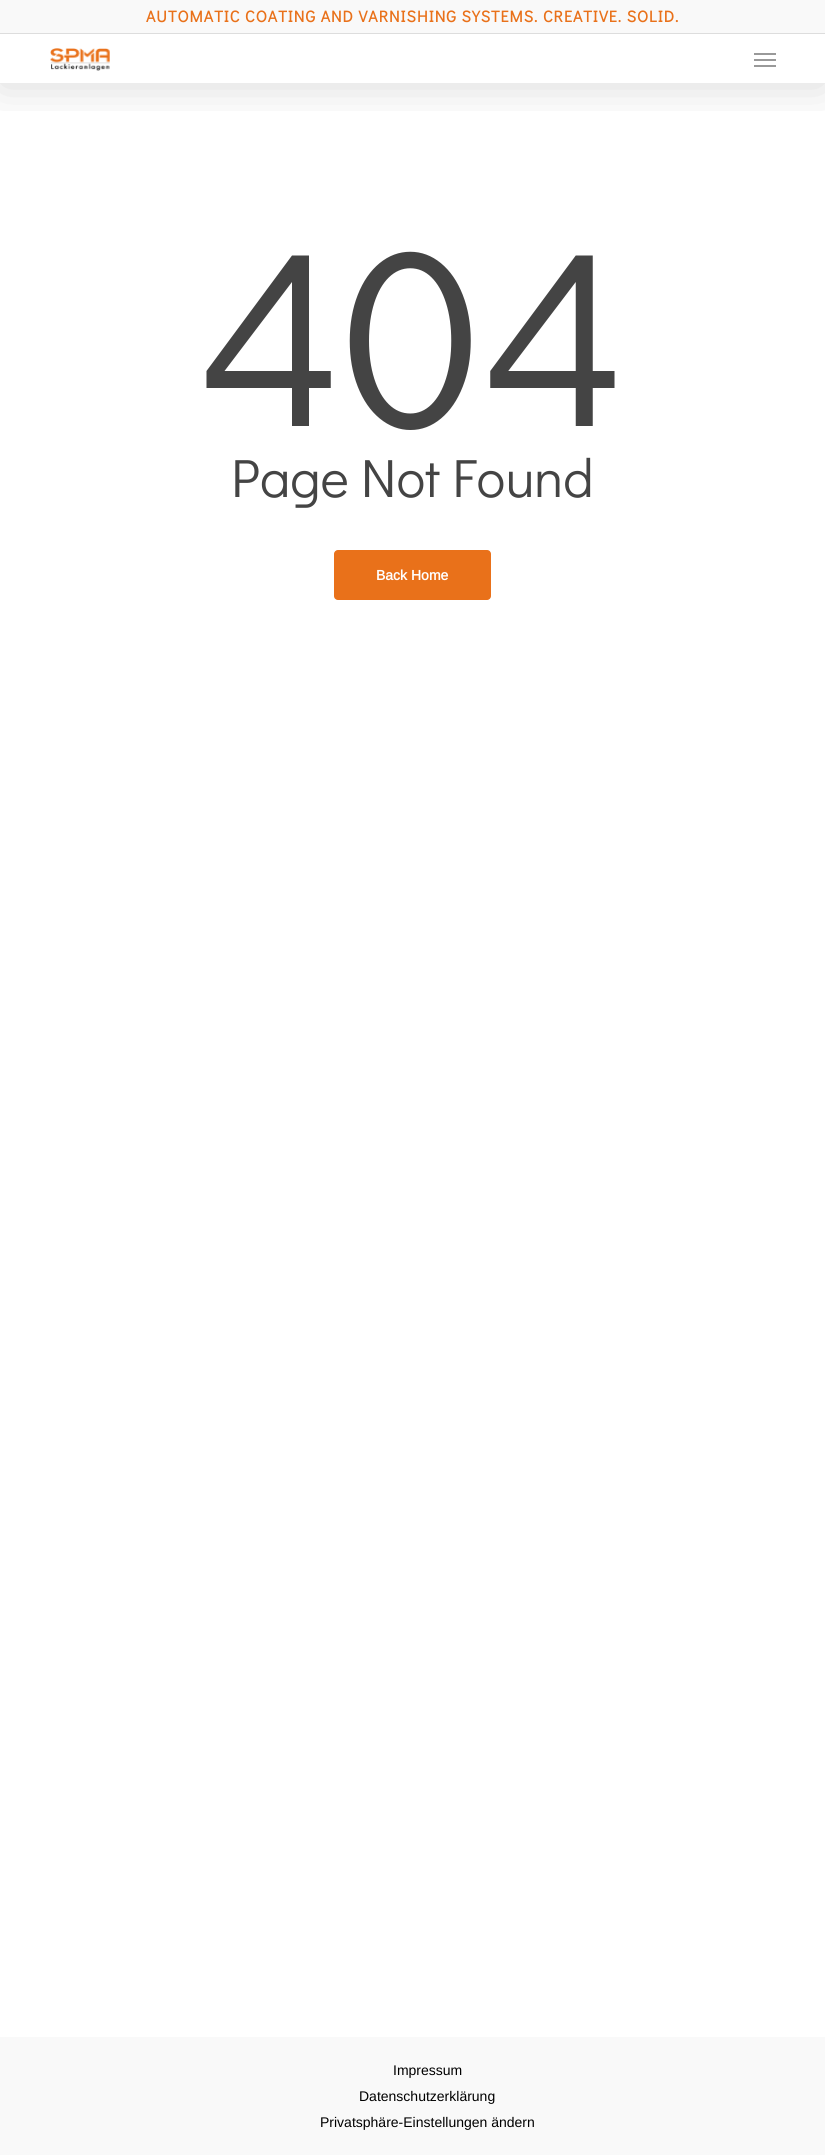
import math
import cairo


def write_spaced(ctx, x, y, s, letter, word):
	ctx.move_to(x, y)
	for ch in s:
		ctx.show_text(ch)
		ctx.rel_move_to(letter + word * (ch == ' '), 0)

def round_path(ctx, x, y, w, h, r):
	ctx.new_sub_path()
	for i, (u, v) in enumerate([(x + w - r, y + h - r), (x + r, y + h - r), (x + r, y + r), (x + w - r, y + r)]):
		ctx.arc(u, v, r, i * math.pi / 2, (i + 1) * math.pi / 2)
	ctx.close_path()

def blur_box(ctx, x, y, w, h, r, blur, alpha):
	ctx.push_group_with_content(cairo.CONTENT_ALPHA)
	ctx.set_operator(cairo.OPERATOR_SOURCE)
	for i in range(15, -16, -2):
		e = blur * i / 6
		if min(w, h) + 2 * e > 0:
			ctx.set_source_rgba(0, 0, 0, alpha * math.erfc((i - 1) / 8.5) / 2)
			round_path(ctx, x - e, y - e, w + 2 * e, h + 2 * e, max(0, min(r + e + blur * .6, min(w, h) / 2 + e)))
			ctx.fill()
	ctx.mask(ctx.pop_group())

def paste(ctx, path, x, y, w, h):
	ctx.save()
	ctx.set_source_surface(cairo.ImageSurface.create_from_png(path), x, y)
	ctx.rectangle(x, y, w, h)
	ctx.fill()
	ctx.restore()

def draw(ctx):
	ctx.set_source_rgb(1, 1, 1)
	ctx.paint()
	ctx.save()
	ctx.rectangle(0, 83, 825, 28)
	ctx.clip()
	ctx.set_source_rgb(0, 0, 0)
	blur_box(ctx, 0, 3, 825, 83, 0, 22.5, 0.15)
	ctx.restore()
	ctx.set_source_rgb(0.973, 0.973, 0.973)
	ctx.rectangle(0, 0, 825, 33)
	ctx.fill()
	ctx.set_source_rgb(0.867, 0.867, 0.867)
	ctx.rectangle(0, 33, 825, 1)
	ctx.fill()
	ctx.select_font_face('Didact Gothic', cairo.FONT_SLANT_NORMAL, cairo.FONT_WEIGHT_BOLD)
	ctx.set_font_size(16)
	ctx.set_source_rgb(0.914, 0.443, 0.102)
	write_spaced(ctx, 146, 22, 'AUTOMATIC COATING AND VARNISHING SYSTEMS. CREATIVE. SOLID.', 1, 0)
	paste(ctx, 'media/1.png', 50, 48, 60, 23)
	ctx.set_source_rgb(0.6, 0.6, 0.6)
	ctx.rectangle(754, 53, 22, 2)
	ctx.rectangle(754, 65, 22, 2)
	ctx.rectangle(754, 59, 22, 2)
	ctx.fill()
	ctx.select_font_face('Didact Gothic')
	ctx.set_font_size(250)
	ctx.set_source_rgb(0.267, 0.267, 0.267)
	ctx.move_to(199, 426)
	ctx.show_text('404')
	ctx.set_font_size(54)
	ctx.move_to(231, 497)
	ctx.show_text('Page Not Found')
	ctx.set_source_rgb(0.914, 0.443, 0.102)
	round_path(ctx, 334, 550, 157, 50, 4)
	ctx.fill()
	ctx.select_font_face('Arimo', cairo.FONT_SLANT_NORMAL, cairo.FONT_WEIGHT_BOLD)
	ctx.set_font_size(14)
	ctx.set_source_rgb(1, 1, 1)
	ctx.move_to(376, 580)
	ctx.show_text('Back Home')
	ctx.set_source_rgb(0.973, 0.973, 0.973)
	ctx.rectangle(0, 2037, 825, 118)
	ctx.fill()
	ctx.select_font_face('Arimo')
	ctx.set_source_rgb(0, 0, 0)
	for x, y, s in [
		(393, 2075, 'Impressum'),
		(359, 2101, 'Datenschutzerklärung'),
		(320, 2127, 'Privatsphäre-Einstellungen ändern'),
	]:
		ctx.move_to(x, y)
		ctx.show_text(s)


surface = cairo.ImageSurface(cairo.FORMAT_RGB24, 825, 2155)
ctx = cairo.Context(surface)
options = cairo.FontOptions()
options.set_hint_metrics(cairo.HINT_METRICS_OFF)
options.set_hint_style(cairo.HINT_STYLE_NONE)
ctx.set_font_options(options)
ctx.set_miter_limit(4)
draw(ctx)
surface.write_to_png('image.png')
